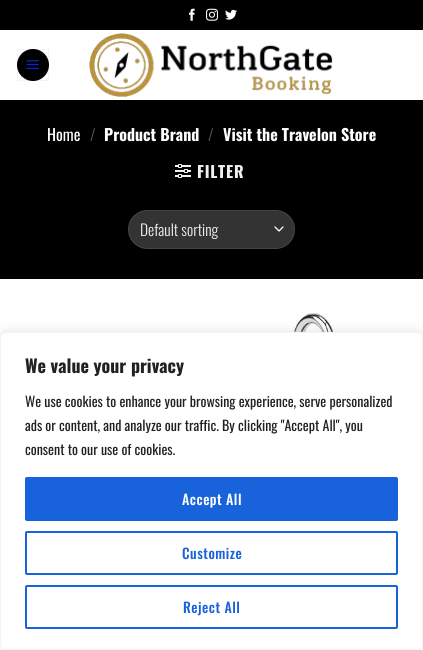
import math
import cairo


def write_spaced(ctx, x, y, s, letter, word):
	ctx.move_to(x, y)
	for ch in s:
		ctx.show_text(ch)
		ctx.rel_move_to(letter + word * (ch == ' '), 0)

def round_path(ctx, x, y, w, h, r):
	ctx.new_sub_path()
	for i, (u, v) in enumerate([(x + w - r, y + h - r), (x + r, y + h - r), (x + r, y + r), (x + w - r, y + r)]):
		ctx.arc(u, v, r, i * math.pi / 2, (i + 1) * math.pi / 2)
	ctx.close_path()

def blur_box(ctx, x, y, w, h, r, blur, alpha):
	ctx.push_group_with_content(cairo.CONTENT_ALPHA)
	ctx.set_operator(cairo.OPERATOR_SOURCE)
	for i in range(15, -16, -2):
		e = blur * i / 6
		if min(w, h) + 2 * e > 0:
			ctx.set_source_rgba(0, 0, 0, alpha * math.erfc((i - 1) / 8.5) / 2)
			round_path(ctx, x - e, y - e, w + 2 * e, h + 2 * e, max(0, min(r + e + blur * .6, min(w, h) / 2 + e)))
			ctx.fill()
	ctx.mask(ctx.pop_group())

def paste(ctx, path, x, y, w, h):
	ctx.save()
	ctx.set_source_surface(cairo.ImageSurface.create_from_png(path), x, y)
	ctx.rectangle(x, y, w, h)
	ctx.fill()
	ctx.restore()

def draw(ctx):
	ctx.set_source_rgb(1, 1, 1)
	ctx.paint()
	ctx.set_source_rgb(0, 0, 0)
	ctx.rectangle(0, 0, 423, 30)
	ctx.fill()
	paste(ctx, 'media/1.png', 189, 8, 6, 13)
	paste(ctx, 'media/2.png', 206, 8, 12, 13)
	paste(ctx, 'media/3.png', 225, 9, 12, 11)
	ctx.arc(33, 65, 16, 0, 2 * math.pi)
	ctx.fill()
	ctx.rectangle(17.5, 49.5, 31, 31)
	ctx.set_source_rgba(0, 0, 0, 0.05)
	ctx.set_line_width(1)
	ctx.stroke()
	paste(ctx, 'media/4.png', 26, 60, 13, 10)
	paste(ctx, 'media/5.png', 89, 33, 244, 64)
	ctx.set_source_rgb(0, 0, 0)
	ctx.rectangle(0, 100, 423, 179)
	ctx.fill()
	ctx.select_font_face('Oswald')
	ctx.set_font_size(16)
	ctx.set_source_rgb(1, 1, 1)
	ctx.move_to(47, 141)
	ctx.show_text('Home')
	ctx.select_font_face('Oswald Light')
	ctx.set_source_rgb(0.349, 0.349, 0.349)
	ctx.move_to(90, 141)
	ctx.show_text('/')
	ctx.select_font_face('Oswald', cairo.FONT_SLANT_NORMAL, cairo.FONT_WEIGHT_BOLD)
	ctx.set_source_rgb(1, 1, 1)
	ctx.move_to(104, 141)
	ctx.show_text('Product Brand')
	ctx.select_font_face('Oswald Light')
	ctx.set_source_rgb(0.349, 0.349, 0.349)
	ctx.move_to(208, 141)
	ctx.show_text('/')
	ctx.select_font_face('Oswald', cairo.FONT_SLANT_NORMAL, cairo.FONT_WEIGHT_BOLD)
	ctx.set_source_rgb(1, 1, 1)
	ctx.move_to(223, 141)
	ctx.show_text('Visit the Travelon Store')
	paste(ctx, 'media/6.png', 175, 164, 16, 14)
	ctx.set_source_rgb(0.945, 0.945, 0.945)
	write_spaced(ctx, 197, 178, 'FILTER', 0.75, 0)
	ctx.set_source_rgb(0.2, 0.2, 0.2)
	round_path(ctx, 128, 210, 167, 39, 19.5)
	ctx.fill()
	ctx.new_path()
	ctx.move_to(275, 227)
	ctx.line_to(279, 231)
	ctx.line_to(283, 227)
	ctx.set_source_rgb(1, 1, 1)
	ctx.set_line_width(1.3)
	ctx.set_line_cap(cairo.LINE_CAP_ROUND)
	ctx.set_line_join(cairo.LINE_JOIN_ROUND)
	ctx.stroke()
	round_path(ctx, 128.5, 210.5, 166, 38, 19)
	ctx.set_source_rgba(1, 1, 1, 0.09)
	ctx.set_line_width(1)
	ctx.set_line_cap(cairo.LINE_CAP_BUTT)
	ctx.set_line_join(cairo.LINE_JOIN_MITER)
	ctx.stroke()
	ctx.select_font_face('Oswald Light')
	ctx.set_font_size(15.5)
	ctx.set_source_rgb(0.945, 0.945, 0.945)
	ctx.move_to(140, 236)
	ctx.show_text('Default sorting')
	paste(ctx, 'media/7.png', 271, 313, 90, 19)
	ctx.set_source_rgb(0.675, 0.671, 0.671)
	blur_box(ctx, 0, 331, 423, 318, 6, 5, 0.3)
	ctx.set_source_rgb(1, 1, 1)
	round_path(ctx, 0.5, 332.5, 422, 317, 5.5)
	ctx.fill_preserve()
	ctx.set_source_rgb(0.957, 0.957, 0.957)
	ctx.stroke()
	ctx.select_font_face('Oswald', cairo.FONT_SLANT_NORMAL, cairo.FONT_WEIGHT_BOLD)
	ctx.set_font_size(18)
	ctx.set_source_rgb(0.129, 0.129, 0.129)
	ctx.move_to(25, 373)
	ctx.show_text('We value your privacy')
	ctx.select_font_face('Oswald')
	ctx.set_font_size(14)
	for x, y, s in [
		(25, 407, 'We use cookies to enhance your browsing experience, serve personalized'),
		(25, 431, 'ads or content, and analyze our traffic. By clicking "Accept All", you'),
		(25, 455, 'consent to our use of cookies.'),
	]:
		ctx.move_to(x, y)
		ctx.show_text(s)
	ctx.set_source_rgb(0.094, 0.388, 0.863)
	round_path(ctx, 26, 478, 371, 42, 1)
	ctx.fill_preserve()
	ctx.set_line_width(2)
	ctx.stroke()
	ctx.select_font_face('Oswald Medium')
	ctx.set_source_rgb(1, 1, 1)
	write_spaced(ctx, 182, 505, 'Accept All', 0.5, 0)
	round_path(ctx, 26, 532, 371, 42, 1)
	ctx.set_source_rgb(0.094, 0.388, 0.863)
	ctx.stroke()
	write_spaced(ctx, 182, 559, 'Customize', 0.5, 0)
	round_path(ctx, 26, 586, 371, 42, 1)
	ctx.stroke()
	write_spaced(ctx, 183, 613, 'Reject All', 0.5, 0)


surface = cairo.ImageSurface(cairo.FORMAT_RGB24, 423, 650)
ctx = cairo.Context(surface)
options = cairo.FontOptions()
options.set_hint_metrics(cairo.HINT_METRICS_OFF)
options.set_hint_style(cairo.HINT_STYLE_NONE)
ctx.set_font_options(options)
ctx.set_miter_limit(4)
draw(ctx)
surface.write_to_png('image.png')
